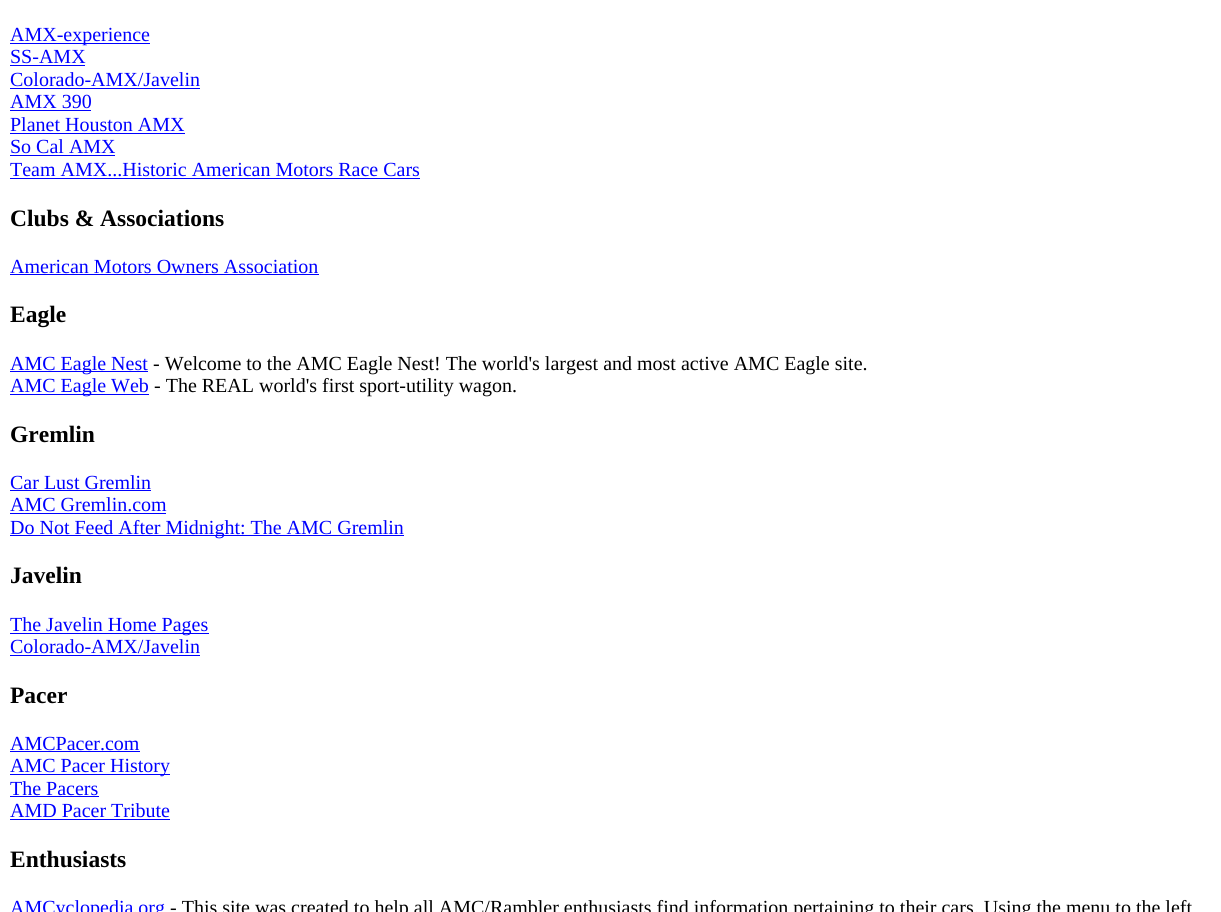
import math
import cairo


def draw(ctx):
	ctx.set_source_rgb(1, 1, 1)
	ctx.paint()
	ctx.set_source_rgb(0, 0, 1)
	ctx.rectangle(10, 43, 140, 1)
	ctx.fill()
	ctx.select_font_face('Liberation Serif')
	ctx.set_font_size(20)
	ctx.move_to(10, 41)
	ctx.show_text('AMX-experience')
	ctx.move_to(10, 63)
	ctx.show_text('SS-AMX')
	ctx.rectangle(10, 65, 75, 1)
	ctx.fill()
	ctx.move_to(10, 86)
	ctx.show_text('Colorado-AMX/Javelin')
	ctx.rectangle(10, 88, 190, 1)
	ctx.fill()
	ctx.move_to(10, 108)
	ctx.show_text('AMX 390')
	ctx.rectangle(10, 110, 81, 1)
	ctx.fill()
	ctx.move_to(10, 131)
	ctx.show_text('Planet Houston AMX')
	ctx.rectangle(10, 133, 175, 1)
	ctx.fill()
	ctx.move_to(10, 153)
	ctx.show_text('So Cal AMX')
	ctx.rectangle(10, 155, 105, 1)
	ctx.fill()
	ctx.move_to(10, 176)
	ctx.show_text('Team AMX...Historic American Motors Race Cars')
	ctx.rectangle(10, 178, 410, 1)
	ctx.fill()
	ctx.select_font_face('Liberation Serif', cairo.FONT_SLANT_NORMAL, cairo.FONT_WEIGHT_BOLD)
	ctx.set_font_size(23.5)
	ctx.set_source_rgb(0, 0, 0)
	ctx.move_to(10, 226)
	ctx.show_text('Clubs & Associations')
	ctx.select_font_face('Liberation Serif')
	ctx.set_font_size(20)
	ctx.set_source_rgb(0, 0, 1)
	ctx.move_to(10, 273)
	ctx.show_text('American Motors Owners Association')
	ctx.rectangle(10, 274, 309, 1)
	ctx.fill()
	ctx.select_font_face('Liberation Serif', cairo.FONT_SLANT_NORMAL, cairo.FONT_WEIGHT_BOLD)
	ctx.set_font_size(23.5)
	ctx.set_source_rgb(0, 0, 0)
	ctx.move_to(10, 322)
	ctx.show_text('Eagle')
	ctx.set_source_rgb(0, 0, 1)
	ctx.rectangle(10, 371, 138, 1)
	ctx.fill()
	ctx.select_font_face('Liberation Serif')
	ctx.set_font_size(20)
	ctx.move_to(10, 370)
	ctx.show_text('AMC Eagle Nest')
	ctx.set_source_rgb(0, 0, 0)
	ctx.move_to(153, 370)
	ctx.show_text('- Welcome to the AMC Eagle Nest! The world\'s largest and most active AMC Eagle site.')
	ctx.set_source_rgb(0, 0, 1)
	ctx.rectangle(10, 394, 139, 1)
	ctx.fill()
	ctx.move_to(10, 392)
	ctx.show_text('AMC Eagle Web')
	ctx.set_source_rgb(0, 0, 0)
	ctx.move_to(154, 392)
	ctx.show_text('- The REAL world\'s first sport-utility wagon.')
	ctx.select_font_face('Liberation Serif', cairo.FONT_SLANT_NORMAL, cairo.FONT_WEIGHT_BOLD)
	ctx.set_font_size(23.5)
	ctx.move_to(10, 442)
	ctx.show_text('Gremlin')
	ctx.select_font_face('Liberation Serif')
	ctx.set_font_size(20)
	ctx.set_source_rgb(0, 0, 1)
	ctx.move_to(10, 489)
	ctx.show_text('Car Lust Gremlin')
	ctx.rectangle(10, 490, 141, 1)
	ctx.fill()
	ctx.move_to(10, 511)
	ctx.show_text('AMC Gremlin.com')
	ctx.rectangle(10, 513, 156, 1)
	ctx.fill()
	ctx.rectangle(10, 535, 394, 1)
	ctx.fill()
	ctx.move_to(10, 534)
	ctx.show_text('Do Not Feed After Midnight: The AMC Gremlin')
	ctx.select_font_face('Liberation Serif', cairo.FONT_SLANT_NORMAL, cairo.FONT_WEIGHT_BOLD)
	ctx.set_font_size(23.5)
	ctx.set_source_rgb(0, 0, 0)
	ctx.move_to(10, 583)
	ctx.show_text('Javelin')
	ctx.set_source_rgb(0, 0, 1)
	ctx.rectangle(10, 633, 199, 1)
	ctx.fill()
	ctx.select_font_face('Liberation Serif')
	ctx.set_font_size(20)
	ctx.move_to(10, 631)
	ctx.show_text('The Javelin Home Pages')
	ctx.move_to(10, 653)
	ctx.show_text('Colorado-AMX/Javelin')
	ctx.rectangle(10, 655, 190, 1)
	ctx.fill()
	ctx.select_font_face('Liberation Serif', cairo.FONT_SLANT_NORMAL, cairo.FONT_WEIGHT_BOLD)
	ctx.set_font_size(23.5)
	ctx.set_source_rgb(0, 0, 0)
	ctx.move_to(10, 703)
	ctx.show_text('Pacer')
	ctx.select_font_face('Liberation Serif')
	ctx.set_font_size(20)
	ctx.set_source_rgb(0, 0, 1)
	ctx.move_to(10, 750)
	ctx.show_text('AMCPacer.com')
	ctx.rectangle(10, 751, 130, 1)
	ctx.fill()
	ctx.rectangle(10, 774, 160, 1)
	ctx.fill()
	ctx.move_to(10, 772)
	ctx.show_text('AMC Pacer History')
	ctx.move_to(10, 795)
	ctx.show_text('The Pacers')
	ctx.rectangle(10, 796, 89, 1)
	ctx.fill()
	ctx.move_to(10, 817)
	ctx.show_text('AMD Pacer Tribute')
	ctx.rectangle(10, 819, 160, 1)
	ctx.fill()
	ctx.select_font_face('Liberation Serif', cairo.FONT_SLANT_NORMAL, cairo.FONT_WEIGHT_BOLD)
	ctx.set_font_size(23.5)
	ctx.set_source_rgb(0, 0, 0)
	ctx.move_to(10, 867)
	ctx.show_text('Enthusiasts')
	ctx.select_font_face('Liberation Serif')
	ctx.set_font_size(20)
	ctx.set_source_rgb(0, 0, 1)
	ctx.move_to(10, 914)
	ctx.show_text('AMCyclopedia.org')
	ctx.set_source_rgb(0, 0, 0)
	ctx.move_to(170, 914)
	ctx.show_text('- This site was created to help all AMC/Rambler enthusiasts find information pertaining to their cars. Using the menu to the left')


surface = cairo.ImageSurface(cairo.FORMAT_RGB24, 1221, 912)
ctx = cairo.Context(surface)
options = cairo.FontOptions()
options.set_hint_metrics(cairo.HINT_METRICS_OFF)
options.set_hint_style(cairo.HINT_STYLE_NONE)
ctx.set_font_options(options)
ctx.set_miter_limit(4)
draw(ctx)
surface.write_to_png('image.png')
